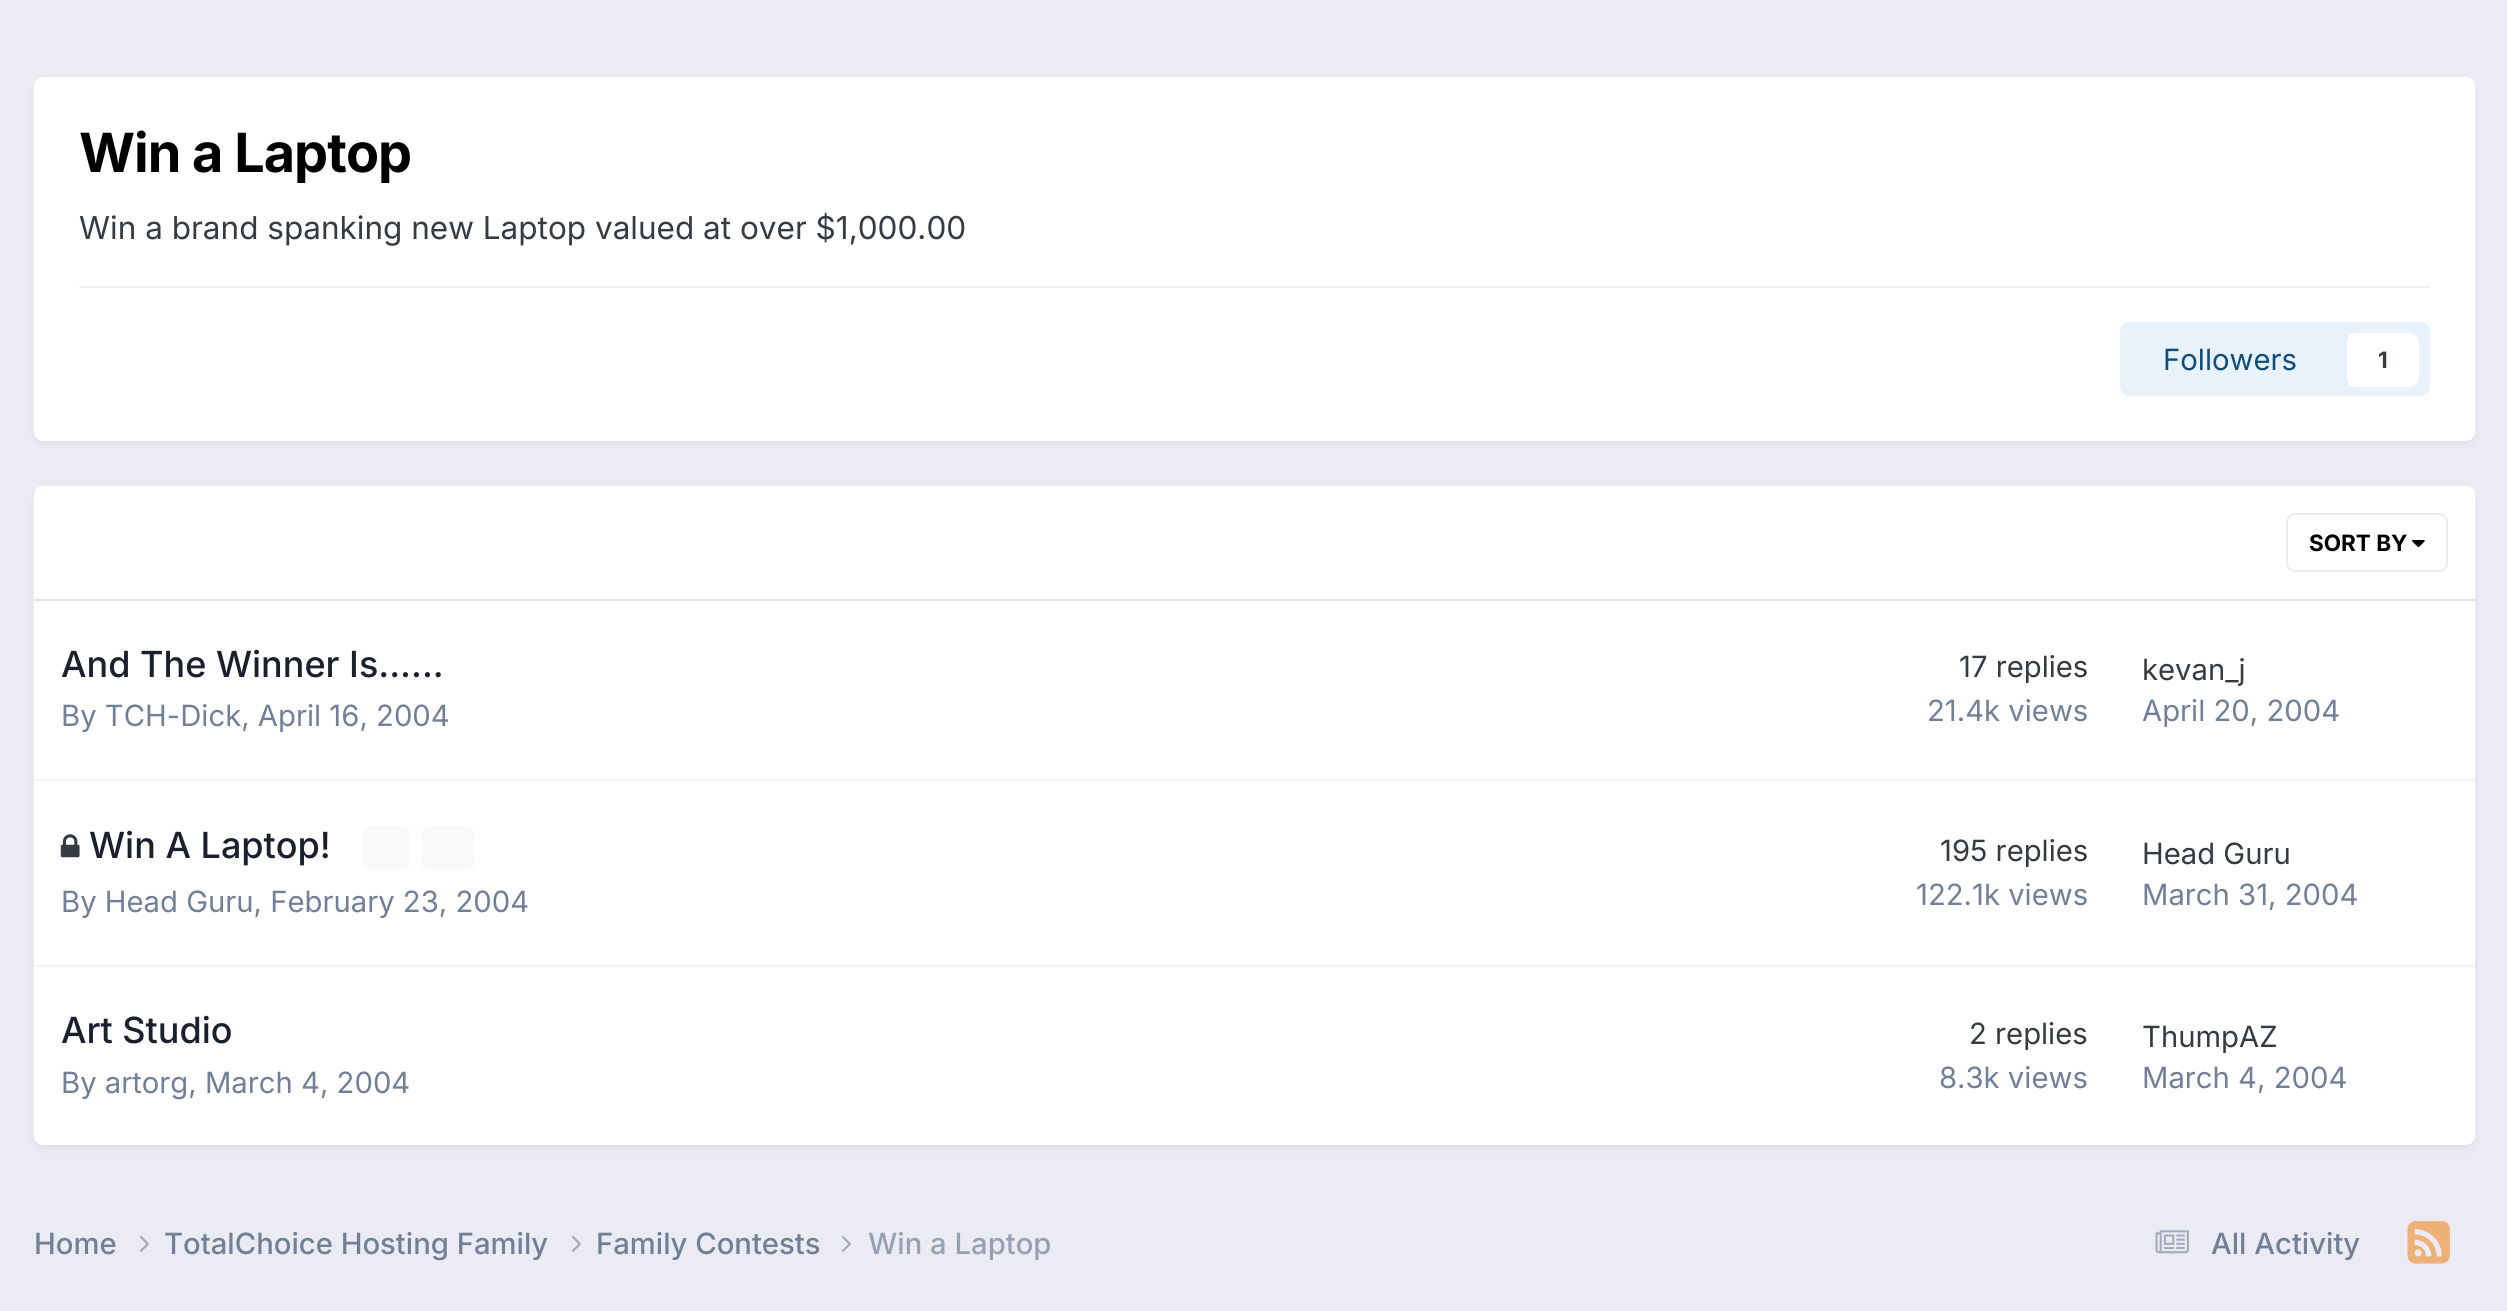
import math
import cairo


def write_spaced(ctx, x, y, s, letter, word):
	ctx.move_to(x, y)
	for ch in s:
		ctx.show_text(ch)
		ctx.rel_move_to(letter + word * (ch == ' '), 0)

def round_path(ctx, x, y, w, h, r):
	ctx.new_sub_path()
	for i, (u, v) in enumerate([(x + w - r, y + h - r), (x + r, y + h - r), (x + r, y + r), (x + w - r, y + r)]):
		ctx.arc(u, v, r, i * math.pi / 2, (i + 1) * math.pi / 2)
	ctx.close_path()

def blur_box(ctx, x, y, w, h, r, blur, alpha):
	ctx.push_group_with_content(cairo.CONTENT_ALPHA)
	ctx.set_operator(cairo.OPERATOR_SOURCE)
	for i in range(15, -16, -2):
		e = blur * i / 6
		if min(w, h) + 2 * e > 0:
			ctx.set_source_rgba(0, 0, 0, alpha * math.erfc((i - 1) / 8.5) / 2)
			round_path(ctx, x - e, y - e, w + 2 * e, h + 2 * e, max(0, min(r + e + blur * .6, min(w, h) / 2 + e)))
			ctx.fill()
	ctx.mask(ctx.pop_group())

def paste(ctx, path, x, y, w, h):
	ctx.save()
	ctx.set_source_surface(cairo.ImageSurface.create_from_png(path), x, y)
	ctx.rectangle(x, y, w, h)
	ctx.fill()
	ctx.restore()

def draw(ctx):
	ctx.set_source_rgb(0.918, 0.925, 0.953)
	ctx.paint()
	ctx.set_source_rgb(0.176, 0.216, 0.282)
	blur_box(ctx, 36, 83, 2437, 360, 7, 4.5, 0.1)
	ctx.set_source_rgb(1, 1, 1)
	round_path(ctx, 34, 77, 2441, 364, 9)
	ctx.fill()
	ctx.select_font_face('Inter', cairo.FONT_SLANT_NORMAL, cairo.FONT_WEIGHT_BOLD)
	ctx.set_font_size(54)
	ctx.set_source_rgb(0, 0, 0)
	write_spaced(ctx, 79, 172, 'Win a Laptop', -1, 0)
	ctx.select_font_face('Inter')
	ctx.set_font_size(31.5)
	ctx.set_source_rgb(0.208, 0.235, 0.255)
	ctx.move_to(79, 239)
	ctx.show_text('Win a brand spanking new Laptop valued at over $1,000.00')
	ctx.set_source_rgb(0.937, 0.937, 0.941)
	ctx.rectangle(79, 286, 2351, 2)
	ctx.fill()
	ctx.set_source_rgb(0.91, 0.949, 0.98)
	round_path(ctx, 2120, 322, 310, 74, 9)
	ctx.fill()
	ctx.set_font_size(29.25)
	ctx.set_source_rgb(0.055, 0.298, 0.475)
	ctx.move_to(2163, 370)
	ctx.show_text('Followers')
	ctx.set_source_rgb(1, 1, 1)
	round_path(ctx, 2347, 333, 72, 54, 9)
	ctx.fill()
	ctx.select_font_face('Inter', cairo.FONT_SLANT_NORMAL, cairo.FONT_WEIGHT_BOLD)
	ctx.set_font_size(22.5)
	ctx.set_source_rgb(0.208, 0.235, 0.255)
	ctx.move_to(2378, 368)
	ctx.show_text('1')
	ctx.set_source_rgb(0.176, 0.216, 0.282)
	blur_box(ctx, 36, 493, 2437, 655, 7, 4.5, 0.1)
	ctx.set_source_rgb(1, 1, 1)
	round_path(ctx, 34, 486, 2441, 659, 9)
	ctx.fill()
	ctx.new_path()
	ctx.move_to(43, 486)
	ctx.line_to(2466, 486)
	ctx.curve_to(2471, 486, 2475, 490, 2475, 495)
	ctx.line_to(2475, 601)
	ctx.line_to(34, 601)
	ctx.line_to(34, 495)
	ctx.curve_to(34, 490, 38, 486, 43, 486)
	ctx.close_path()
	ctx.fill()
	ctx.set_source_rgb(0.882, 0.886, 0.89)
	ctx.rectangle(34, 599, 2441, 2)
	ctx.fill()
	paste(ctx, 'media/1.png', 2412, 540, 13, 8)
	round_path(ctx, 2287, 514, 160, 57, 8)
	ctx.set_source_rgb(0.922, 0.925, 0.925)
	ctx.stroke()
	ctx.set_source_rgb(0, 0, 0)
	ctx.move_to(2309, 551)
	ctx.show_text('SORT BY')
	ctx.set_source_rgb(0.945, 0.949, 0.961)
	ctx.rectangle(34, 779, 2441, 2)
	ctx.fill()
	ctx.select_font_face('Inter Medium')
	ctx.set_font_size(36)
	ctx.set_source_rgb(0.102, 0.125, 0.173)
	ctx.move_to(61, 677)
	ctx.show_text('And The Winner Is......')
	ctx.select_font_face('Inter')
	ctx.set_font_size(29.25)
	ctx.set_source_rgb(0.443, 0.502, 0.588)
	ctx.move_to(61, 726)
	ctx.show_text('By TCH-Dick, April 16, 2004')
	ctx.set_source_rgb(0.208, 0.235, 0.255)
	ctx.move_to(1959, 677)
	ctx.show_text('17 replies')
	ctx.set_source_rgb(0.443, 0.502, 0.588)
	ctx.move_to(1927, 721)
	ctx.show_text('21.4k views')
	ctx.set_source_rgb(0.208, 0.235, 0.255)
	ctx.move_to(2142, 680)
	ctx.show_text('kevan_j')
	ctx.set_source_rgb(0.443, 0.502, 0.588)
	ctx.move_to(2142, 721)
	ctx.show_text('April 20, 2004')
	ctx.set_source_rgb(0.945, 0.949, 0.961)
	ctx.rectangle(34, 965, 2441, 2)
	ctx.fill()
	paste(ctx, 'media/2.png', 60, 834, 20, 24)
	ctx.select_font_face('Inter Medium')
	ctx.set_font_size(36)
	ctx.set_source_rgb(0.102, 0.125, 0.173)
	ctx.move_to(89, 858)
	ctx.show_text('Win A Laptop!')
	ctx.set_source_rgb(0.973, 0.973, 0.976)
	round_path(ctx, 362, 826, 48, 45, 9)
	ctx.fill()
	round_path(ctx, 421, 826, 54, 45, 9)
	ctx.fill()
	ctx.select_font_face('Inter')
	ctx.set_font_size(29.25)
	ctx.set_source_rgb(0.443, 0.502, 0.588)
	ctx.move_to(61, 912)
	ctx.show_text('By Head Guru, February 23, 2004')
	ctx.set_source_rgb(0.208, 0.235, 0.255)
	ctx.move_to(1940, 861)
	ctx.show_text('195 replies')
	ctx.set_source_rgb(0.443, 0.502, 0.588)
	ctx.move_to(1916, 905)
	ctx.show_text('122.1k views')
	ctx.set_source_rgb(0.208, 0.235, 0.255)
	ctx.move_to(2142, 864)
	ctx.show_text('Head Guru')
	ctx.set_source_rgb(0.443, 0.502, 0.588)
	ctx.move_to(2142, 905)
	ctx.show_text('March 31, 2004')
	ctx.select_font_face('Inter Medium')
	ctx.set_font_size(36)
	ctx.set_source_rgb(0.102, 0.125, 0.173)
	ctx.move_to(61, 1043)
	ctx.show_text('Art Studio')
	ctx.select_font_face('Inter')
	ctx.set_font_size(29.25)
	ctx.set_source_rgb(0.443, 0.502, 0.588)
	ctx.move_to(61, 1093)
	ctx.show_text('By artorg, March 4, 2004')
	ctx.set_source_rgb(0.208, 0.235, 0.255)
	ctx.move_to(1969, 1044)
	ctx.show_text('2 replies')
	ctx.set_source_rgb(0.443, 0.502, 0.588)
	ctx.move_to(1939, 1088)
	ctx.show_text('8.3k views')
	ctx.set_source_rgb(0.208, 0.235, 0.255)
	ctx.move_to(2142, 1047)
	ctx.show_text('ThumpAZ')
	ctx.set_source_rgb(0.443, 0.502, 0.588)
	ctx.move_to(2142, 1088)
	ctx.show_text('March 4, 2004')
	ctx.select_font_face('Inter Medium')
	ctx.move_to(34, 1254)
	ctx.show_text('Home')
	paste(ctx, 'media/3.png', 139, 1235, 11, 17)
	ctx.move_to(164, 1254)
	ctx.show_text('TotalChoice Hosting Family')
	paste(ctx, 'media/3.png', 571, 1235, 11, 17)
	ctx.move_to(596, 1254)
	ctx.show_text('Family Contests')
	paste(ctx, 'media/3.png', 841, 1235, 11, 17)
	ctx.save()
	ctx.rectangle(869, 1222, 182, 45)
	ctx.clip()
	ctx.set_source_rgb(0.584, 0.627, 0.698)
	ctx.move_to(868, 1254)
	ctx.show_text('Win a Laptop')
	ctx.restore()
	paste(ctx, 'media/4.png', 2155, 1230, 34, 24)
	ctx.move_to(2211, 1254)
	ctx.show_text('All Activity')
	paste(ctx, 'media/5.png', 2407, 1221, 43, 43)


surface = cairo.ImageSurface(cairo.FORMAT_RGB24, 2507, 1311)
ctx = cairo.Context(surface)
options = cairo.FontOptions()
options.set_hint_metrics(cairo.HINT_METRICS_OFF)
options.set_hint_style(cairo.HINT_STYLE_NONE)
ctx.set_font_options(options)
ctx.set_miter_limit(4)
draw(ctx)
surface.write_to_png('image.png')
